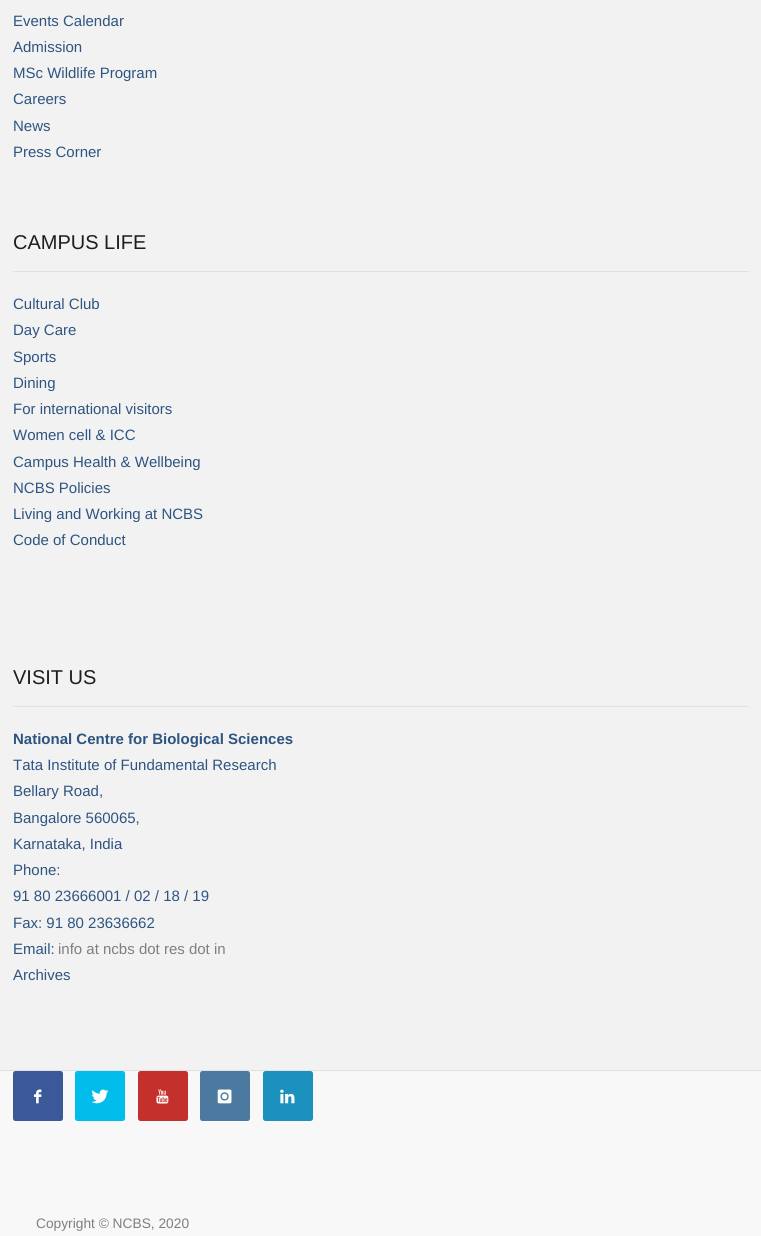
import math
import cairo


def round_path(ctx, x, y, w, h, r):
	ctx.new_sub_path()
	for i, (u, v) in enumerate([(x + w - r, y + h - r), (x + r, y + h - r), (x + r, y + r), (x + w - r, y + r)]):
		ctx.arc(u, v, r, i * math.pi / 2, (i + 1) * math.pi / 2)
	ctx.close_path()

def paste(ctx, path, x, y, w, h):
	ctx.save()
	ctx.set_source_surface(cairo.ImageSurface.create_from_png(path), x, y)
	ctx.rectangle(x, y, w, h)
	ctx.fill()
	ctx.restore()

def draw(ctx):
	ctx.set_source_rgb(0.949, 0.949, 0.949)
	ctx.paint()
	ctx.select_font_face('Liberation Sans')
	ctx.set_font_size(15)
	ctx.set_source_rgb(0.18, 0.329, 0.506)
	for x, y, s in [
		(13, 26, 'Events Calendar'),
		(13, 52, 'Admission'),
		(13, 78, 'MSc Wildlife Program'),
		(13, 104, 'Careers'),
		(13, 131, 'News'),
		(13, 157, 'Press Corner'),
	]:
		ctx.move_to(x, y)
		ctx.show_text(s)
	ctx.set_source_rgb(0.882, 0.882, 0.882)
	ctx.rectangle(13, 271, 736, 1)
	ctx.fill()
	ctx.set_font_size(20)
	ctx.set_source_rgb(0.118, 0.118, 0.118)
	ctx.move_to(13, 249)
	ctx.show_text('CAMPUS LIFE')
	ctx.set_font_size(15)
	ctx.set_source_rgb(0.18, 0.329, 0.506)
	for x, y, s in [
		(13, 309, 'Cultural Club'),
		(13, 335, 'Day Care'),
		(13, 362, 'Sports'),
		(13, 388, 'Dining'),
		(13, 414, 'For international visitors'),
		(13, 440, 'Women cell & ICC'),
		(13, 467, 'Campus Health & Wellbeing'),
		(13, 493, 'NCBS Policies'),
		(13, 519, 'Living and Working at NCBS'),
		(13, 545, 'Code of Conduct'),
	]:
		ctx.move_to(x, y)
		ctx.show_text(s)
	ctx.set_source_rgb(0.882, 0.882, 0.882)
	ctx.rectangle(13, 706, 736, 1)
	ctx.fill()
	ctx.set_font_size(20)
	ctx.set_source_rgb(0.118, 0.118, 0.118)
	ctx.move_to(13, 684)
	ctx.show_text('VISIT US')
	ctx.select_font_face('Liberation Sans', cairo.FONT_SLANT_NORMAL, cairo.FONT_WEIGHT_BOLD)
	ctx.set_font_size(15)
	ctx.set_source_rgb(0.18, 0.329, 0.506)
	ctx.move_to(13, 744)
	ctx.show_text('National Centre for Biological Sciences')
	ctx.select_font_face('Liberation Sans')
	for x, y, s in [
		(13, 770, 'Tata Institute of Fundamental Research'),
		(13, 796, 'Bellary Road,'),
		(13, 823, 'Bangalore 560065,'),
		(13, 849, 'Karnataka, India'),
		(13, 875, 'Phone:'),
		(13, 901, '91 80 23666001 / 02 / 18 / 19'),
		(13, 928, 'Fax: 91 80 23636662'),
		(13, 954, 'Email:'),
	]:
		ctx.move_to(x, y)
		ctx.show_text(s)
	ctx.set_source_rgb(0.498, 0.498, 0.498)
	ctx.move_to(58, 954)
	ctx.show_text('info at ncbs dot res dot in')
	ctx.set_source_rgb(0.18, 0.329, 0.506)
	ctx.move_to(13, 980)
	ctx.show_text('Archives')
	ctx.set_source_rgb(0.969, 0.969, 0.969)
	ctx.rectangle(0, 1071, 761, 165)
	ctx.fill()
	ctx.set_source_rgb(0.882, 0.882, 0.882)
	ctx.rectangle(0, 1070, 761, 1)
	ctx.fill()
	ctx.set_source_rgb(0.231, 0.349, 0.596)
	round_path(ctx, 13, 1071, 50, 50, 2.5)
	ctx.fill()
	paste(ctx, 'media/1.png', 33, 1089, 9, 15)
	ctx.set_source_rgb(0, 0.741, 0.925)
	round_path(ctx, 75, 1071, 50, 50, 2.5)
	ctx.fill()
	paste(ctx, 'media/2.png', 91, 1089, 18, 15)
	ctx.set_source_rgb(0.769, 0.188, 0.169)
	round_path(ctx, 138, 1071, 50, 50, 2.5)
	ctx.fill()
	paste(ctx, 'media/3.png', 156, 1089, 13, 15)
	ctx.set_source_rgb(0.298, 0.475, 0.624)
	round_path(ctx, 200, 1071, 50, 50, 2.5)
	ctx.fill()
	paste(ctx, 'media/4.png', 217, 1089, 15, 15)
	ctx.set_source_rgb(0.106, 0.573, 0.741)
	round_path(ctx, 263, 1071, 50, 50, 2.5)
	ctx.fill()
	paste(ctx, 'media/5.png', 280, 1089, 15, 15)
	ctx.set_font_size(13.75)
	ctx.set_source_rgb(0.498, 0.498, 0.498)
	ctx.move_to(36, 1228)
	ctx.show_text('Copyright © NCBS, 2020')


surface = cairo.ImageSurface(cairo.FORMAT_RGB24, 761, 1236)
ctx = cairo.Context(surface)
options = cairo.FontOptions()
options.set_hint_metrics(cairo.HINT_METRICS_OFF)
options.set_hint_style(cairo.HINT_STYLE_NONE)
ctx.set_font_options(options)
ctx.set_miter_limit(4)
draw(ctx)
surface.write_to_png('image.png')
